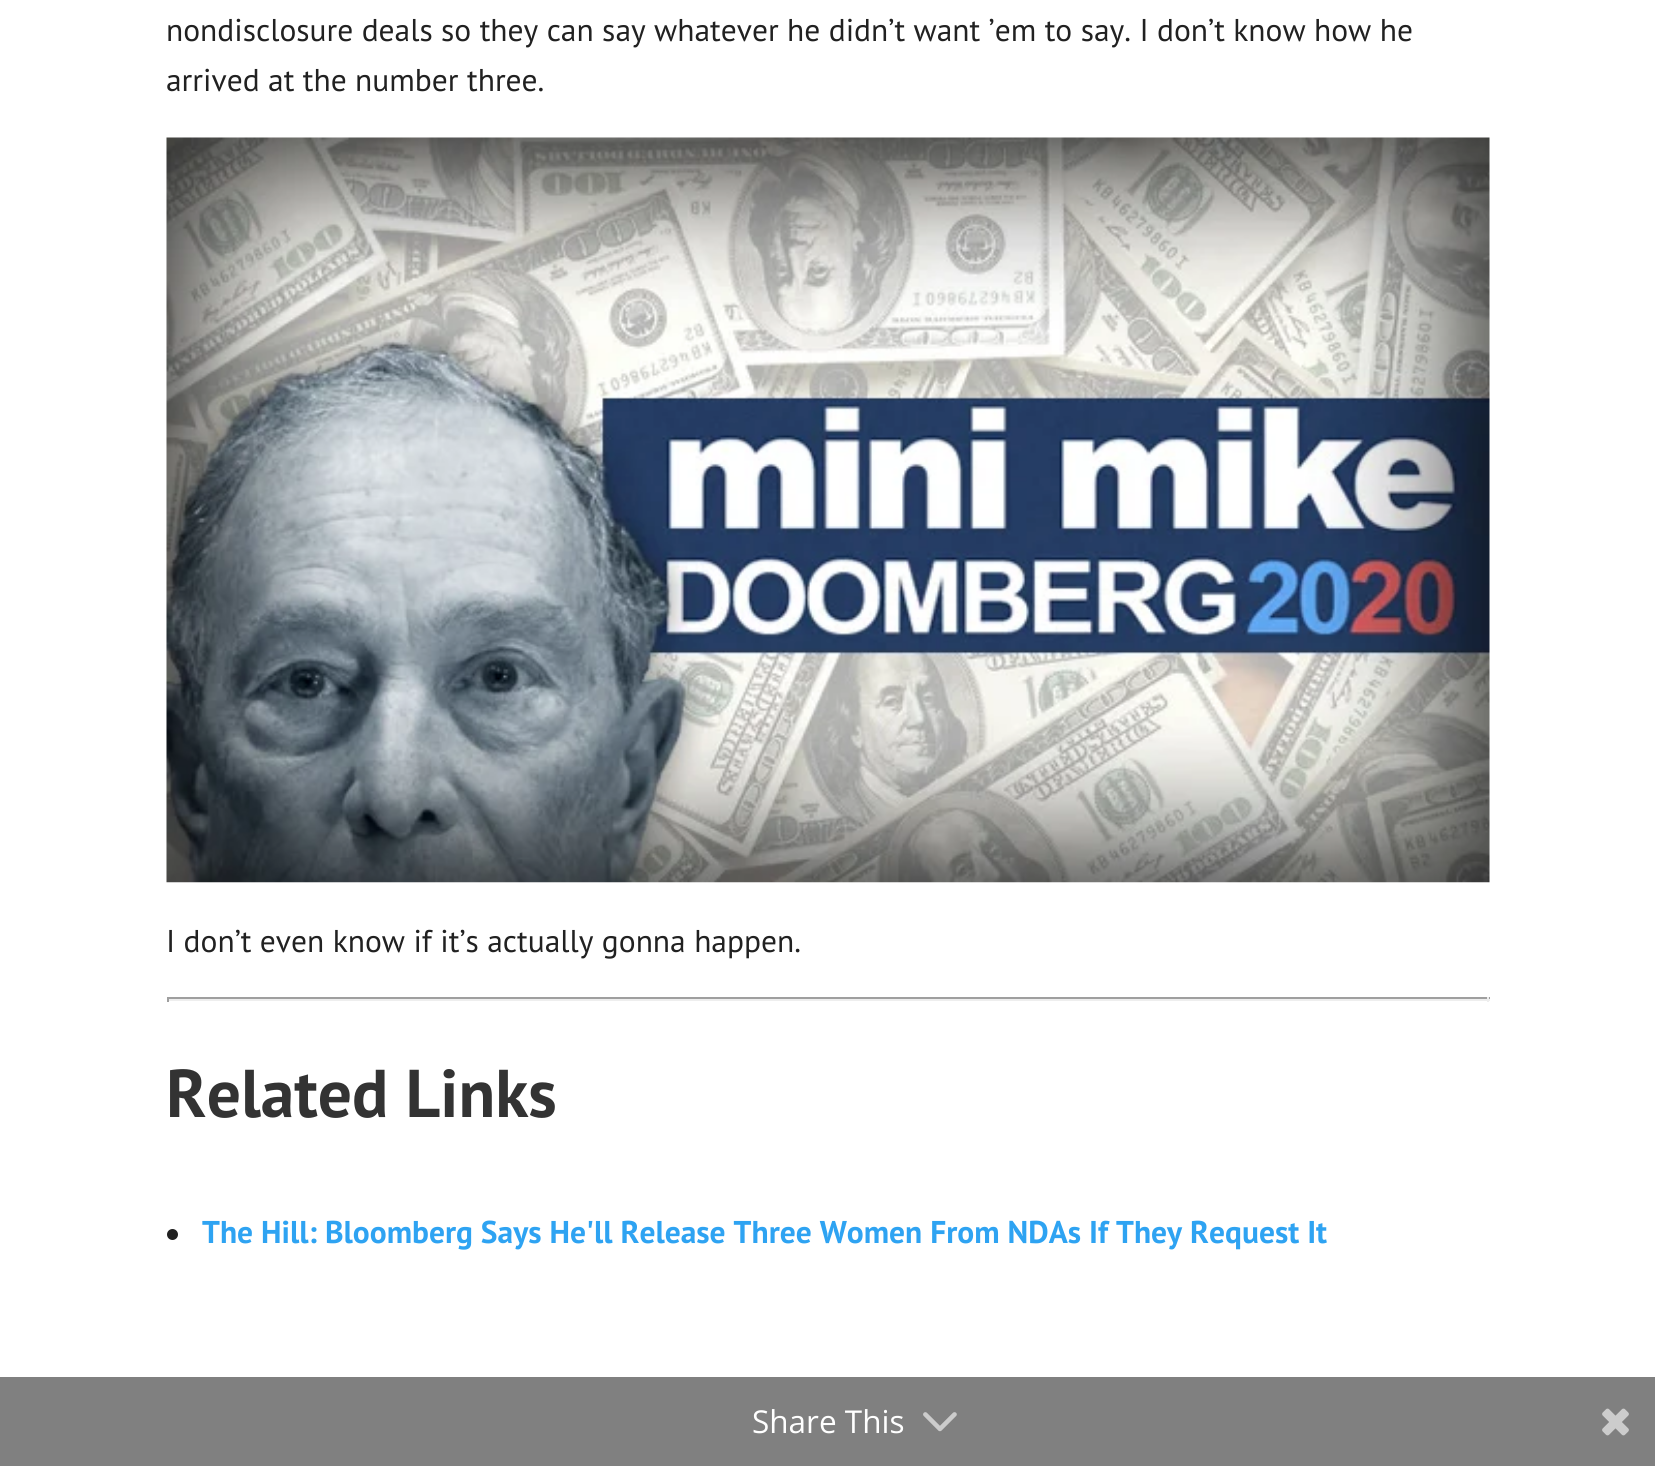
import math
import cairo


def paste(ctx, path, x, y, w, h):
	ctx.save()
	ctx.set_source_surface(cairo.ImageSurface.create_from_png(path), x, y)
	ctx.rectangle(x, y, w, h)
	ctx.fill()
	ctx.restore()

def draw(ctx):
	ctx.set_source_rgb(1, 1, 1)
	ctx.paint()
	ctx.select_font_face('PT Sans')
	ctx.set_font_size(31.5)
	ctx.set_source_rgb(0.129, 0.129, 0.129)
	ctx.move_to(166, 41)
	ctx.show_text('nondisclosure deals so they can say whatever he didn’t want ’em to say. I don’t know how he')
	ctx.move_to(166, 91)
	ctx.show_text('arrived at the number three.')
	paste(ctx, 'media/1.png', 166, 137, 1324, 746)
	ctx.move_to(166, 952)
	ctx.show_text('I don’t even know if it’s actually gonna happen.')
	ctx.set_source_rgb(0.624, 0.624, 0.624)
	ctx.rectangle(167, 997, 1323, 2)
	ctx.fill()
	ctx.set_source_rgb(0.933, 0.933, 0.933)
	ctx.rectangle(1487, 997, 2, 5)
	ctx.rectangle(167, 999, 1323, 2)
	ctx.fill()
	ctx.set_source_rgb(0.624, 0.624, 0.624)
	ctx.rectangle(167, 997, 2, 5)
	ctx.fill()
	ctx.select_font_face('PT Sans', cairo.FONT_SLANT_NORMAL, cairo.FONT_WEIGHT_BOLD)
	ctx.set_font_size(67.5)
	ctx.set_source_rgb(0.2, 0.2, 0.2)
	ctx.move_to(166, 1117)
	ctx.show_text('Related Links')
	ctx.set_source_rgb(0.129, 0.129, 0.129)
	ctx.new_path()
	ctx.arc(172.5, 1234.5, 5.5, 0, 2 * math.pi)
	ctx.fill()
	ctx.set_font_size(31.5)
	ctx.set_source_rgb(0.18, 0.639, 0.949)
	ctx.move_to(202, 1243)
	ctx.show_text('The Hill: Bloomberg Says He\'ll Release Three Women From NDAs If They Request It')
	ctx.set_source_rgb(0.502, 0.502, 0.502)
	ctx.rectangle(0, 1377, 1655, 89)
	ctx.fill()
	ctx.select_font_face('Open Sans')
	ctx.set_source_rgb(1, 1, 1)
	ctx.move_to(752, 1433)
	ctx.show_text('Share This')
	paste(ctx, 'media/2.png', 923, 1412, 34, 20)
	paste(ctx, 'media/3.png', 1602, 1408, 27, 28)


surface = cairo.ImageSurface(cairo.FORMAT_RGB24, 1655, 1466)
ctx = cairo.Context(surface)
options = cairo.FontOptions()
options.set_hint_metrics(cairo.HINT_METRICS_OFF)
options.set_hint_style(cairo.HINT_STYLE_NONE)
ctx.set_font_options(options)
ctx.set_miter_limit(4)
draw(ctx)
surface.write_to_png('image.png')
